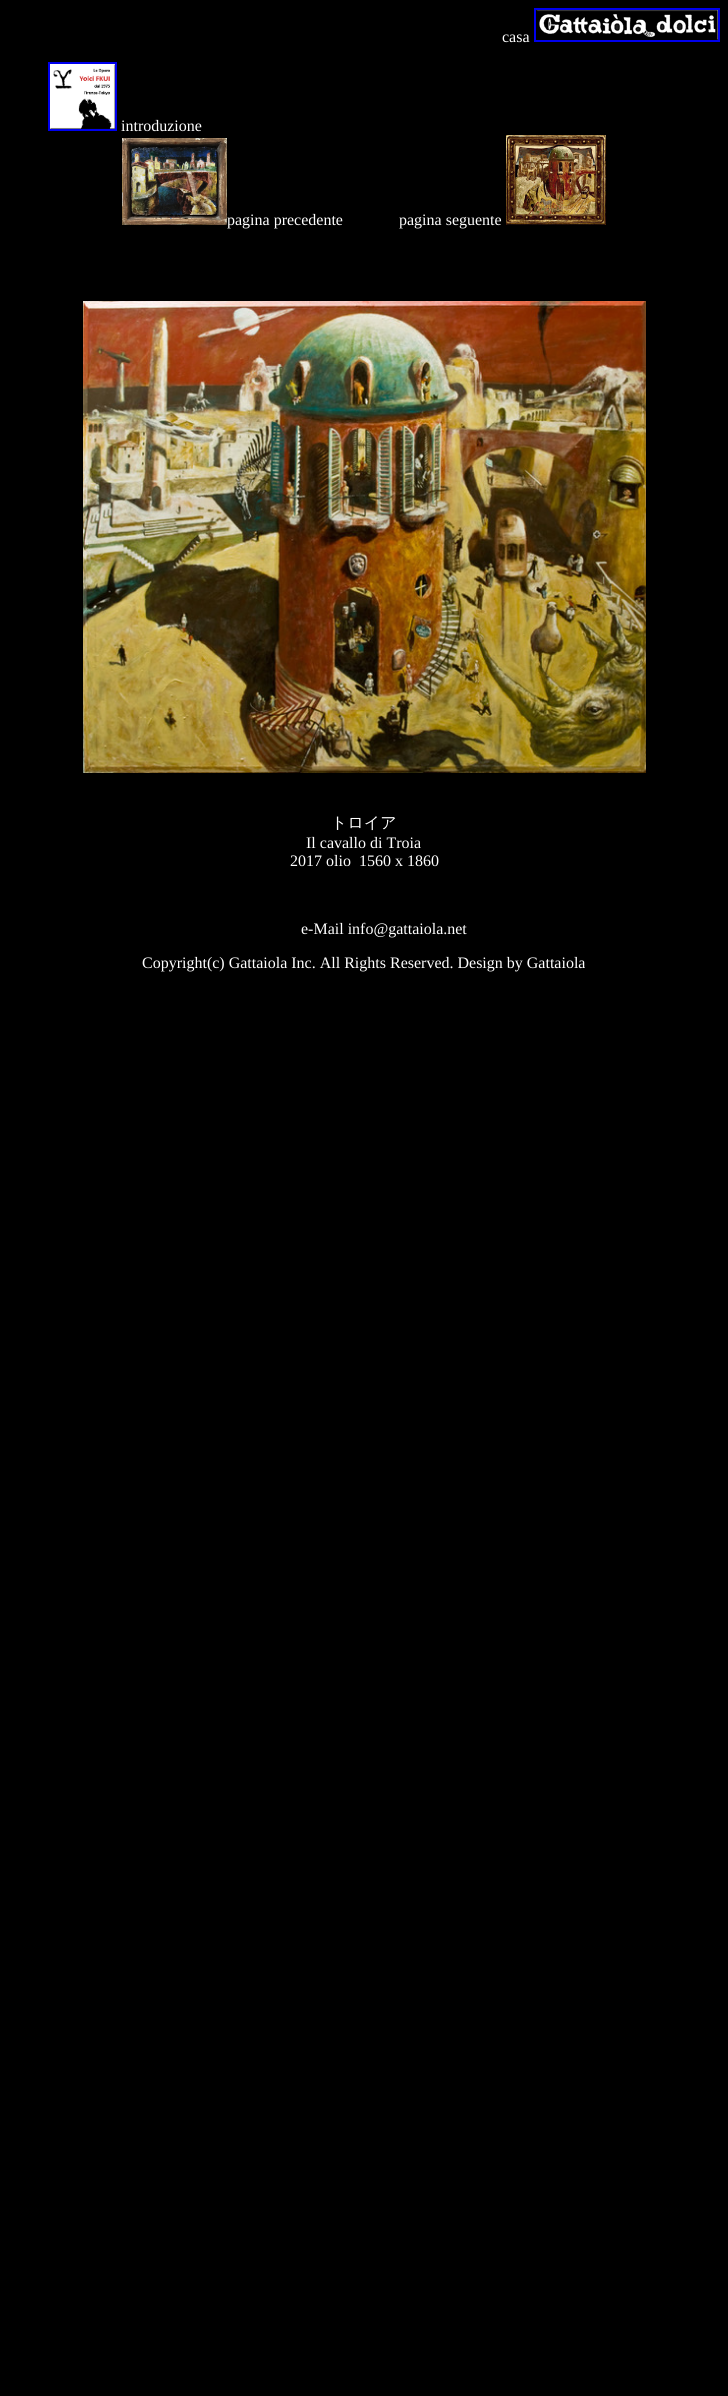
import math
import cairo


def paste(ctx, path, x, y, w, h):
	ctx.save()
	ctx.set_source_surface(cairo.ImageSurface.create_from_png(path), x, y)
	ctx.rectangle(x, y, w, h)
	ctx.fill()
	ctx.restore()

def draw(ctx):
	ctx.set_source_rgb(0, 0, 0)
	ctx.paint()
	ctx.rectangle(535, 9, 184, 32)
	ctx.set_source_rgb(0, 0, 0.933)
	ctx.stroke()
	ctx.select_font_face('Liberation Serif')
	ctx.set_font_size(16)
	ctx.set_source_rgb(1, 1, 1)
	ctx.move_to(502, 42)
	ctx.show_text('casa')
	paste(ctx, 'media/1.png', 536, 10, 182, 30)
	ctx.rectangle(49, 63, 67, 67)
	ctx.set_source_rgb(0, 0, 0.933)
	ctx.stroke()
	paste(ctx, 'media/2.png', 50, 64, 65, 65)
	ctx.set_source_rgb(1, 1, 1)
	ctx.move_to(121, 131)
	ctx.show_text('introduzione')
	paste(ctx, 'media/3.png', 122, 138, 105, 87)
	ctx.move_to(227, 225)
	ctx.show_text('pagina precedente')
	ctx.move_to(399, 225)
	ctx.show_text('pagina seguente')
	paste(ctx, 'media/4.png', 506, 135, 100, 90)
	paste(ctx, 'media/5.png', 83, 301, 563, 472)
	ctx.select_font_face('WenQuanYi Zen Hei Medium')
	ctx.move_to(331, 828)
	ctx.show_text('トロイア')
	ctx.select_font_face('Liberation Serif')
	for x, y, s in [
		(306, 848, 'Il cavallo di Troia'),
		(290, 866, '2017 olio  1560 x 1860'),
		(301, 934, 'e-Mail info@gattaiola.net'),
		(142, 968, 'Copyright(c) Gattaiola Inc. All Rights Reserved. Design by Gattaiola'),
	]:
		ctx.move_to(x, y)
		ctx.show_text(s)


surface = cairo.ImageSurface(cairo.FORMAT_RGB24, 728, 2396)
ctx = cairo.Context(surface)
options = cairo.FontOptions()
options.set_hint_metrics(cairo.HINT_METRICS_OFF)
options.set_hint_style(cairo.HINT_STYLE_NONE)
ctx.set_font_options(options)
ctx.set_miter_limit(4)
draw(ctx)
surface.write_to_png('image.png')
